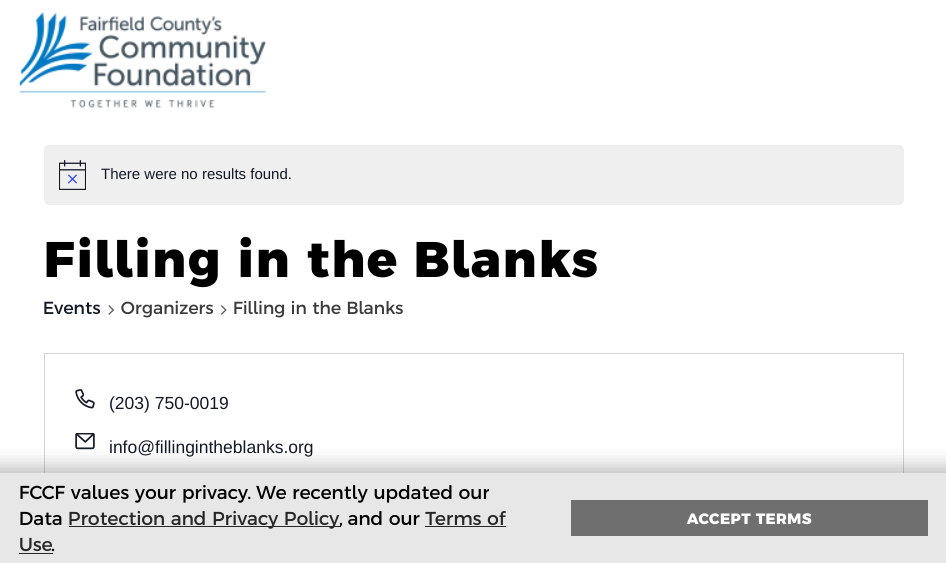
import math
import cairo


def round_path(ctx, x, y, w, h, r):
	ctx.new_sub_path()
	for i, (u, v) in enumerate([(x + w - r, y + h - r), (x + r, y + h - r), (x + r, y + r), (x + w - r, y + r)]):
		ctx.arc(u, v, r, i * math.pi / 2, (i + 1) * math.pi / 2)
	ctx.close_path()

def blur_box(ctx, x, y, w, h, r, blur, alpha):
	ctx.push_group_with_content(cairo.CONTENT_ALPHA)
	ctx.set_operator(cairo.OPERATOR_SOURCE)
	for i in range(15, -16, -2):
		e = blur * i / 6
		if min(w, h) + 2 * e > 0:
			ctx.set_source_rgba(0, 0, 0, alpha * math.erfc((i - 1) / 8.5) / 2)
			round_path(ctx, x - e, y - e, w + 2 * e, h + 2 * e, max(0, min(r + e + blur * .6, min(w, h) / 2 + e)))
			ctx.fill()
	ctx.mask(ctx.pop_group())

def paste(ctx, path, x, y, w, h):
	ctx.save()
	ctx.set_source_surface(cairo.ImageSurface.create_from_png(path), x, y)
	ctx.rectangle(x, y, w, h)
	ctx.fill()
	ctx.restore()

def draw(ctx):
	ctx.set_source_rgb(1, 1, 1)
	ctx.paint()
	paste(ctx, 'media/1.png', 18, 12, 249, 96)
	ctx.set_source_rgb(0.937, 0.937, 0.941)
	round_path(ctx, 44, 145, 860, 60, 5)
	ctx.fill()
	paste(ctx, 'media/2.png', 59, 160, 27, 30)
	ctx.select_font_face('Liberation Sans')
	ctx.set_font_size(15)
	ctx.set_source_rgb(0.078, 0.094, 0.153)
	ctx.move_to(101, 179)
	ctx.show_text('There were no results found.')
	ctx.select_font_face('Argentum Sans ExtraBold')
	ctx.set_font_size(50)
	ctx.set_source_rgb(0, 0, 0)
	ctx.move_to(43, 277)
	ctx.show_text('Filling in the Blanks')
	ctx.select_font_face('Argentum Sans')
	ctx.set_font_size(17.5)
	ctx.set_source_rgb(0.078, 0.094, 0.153)
	ctx.move_to(43, 314)
	ctx.show_text('Events')
	paste(ctx, 'media/3.png', 108, 305, 6, 10)
	ctx.set_source_rgb(0.231, 0.231, 0.231)
	ctx.move_to(121, 314)
	ctx.show_text('Organizers')
	paste(ctx, 'media/4.png', 221, 305, 6, 10)
	ctx.move_to(233, 314)
	ctx.show_text('Filling in the Blanks')
	ctx.rectangle(44.5, 353.5, 859, 181)
	ctx.set_source_rgb(0.835, 0.835, 0.835)
	ctx.set_line_width(1)
	ctx.stroke()
	paste(ctx, 'media/5.png', 75, 389, 20, 20)
	ctx.select_font_face('Liberation Sans')
	ctx.set_source_rgb(0.078, 0.094, 0.153)
	ctx.move_to(109, 409)
	ctx.show_text('(203) 750-0019')
	paste(ctx, 'media/6.png', 75, 433, 20, 17)
	ctx.move_to(109, 453)
	ctx.show_text('info@fillingintheblanks.org')
	ctx.set_source_rgb(0, 0, 0)
	blur_box(ctx, -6, 466, 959, 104, 0, 9.5, 0.25)
	ctx.set_source_rgb(0.906, 0.906, 0.906)
	ctx.rectangle(0, 473, 946, 90)
	ctx.fill()
	ctx.select_font_face('Argentum Sans')
	ctx.set_font_size(18.75)
	ctx.set_source_rgb(0, 0, 0)
	ctx.move_to(19, 499)
	ctx.show_text('FCCF values your privacy. We recently updated our')
	ctx.move_to(19, 525)
	ctx.show_text('Data')
	ctx.set_source_rgb(0.153, 0.153, 0.153)
	ctx.rectangle(69, 526, 271, 1)
	ctx.fill()
	ctx.move_to(68, 525)
	ctx.show_text('Protection and Privacy Policy')
	ctx.set_source_rgb(0, 0, 0)
	ctx.move_to(340, 525)
	ctx.show_text(', and our')
	ctx.set_source_rgb(0.153, 0.153, 0.153)
	ctx.move_to(425, 525)
	ctx.show_text('Terms of')
	ctx.rectangle(425, 526, 81, 1)
	ctx.fill()
	ctx.move_to(19, 551)
	ctx.show_text('Use')
	ctx.rectangle(19, 553, 34, 1)
	ctx.fill()
	ctx.set_source_rgb(0, 0, 0)
	ctx.move_to(52, 551)
	ctx.show_text('.')
	ctx.set_source_rgb(0.435, 0.435, 0.435)
	ctx.rectangle(571, 500, 357, 36)
	ctx.fill()
	ctx.select_font_face('Argentum Sans ExtraBold')
	ctx.set_font_size(15)
	ctx.set_source_rgb(1, 1, 1)
	ctx.move_to(687, 524)
	ctx.show_text('ACCEPT TERMS')


surface = cairo.ImageSurface(cairo.FORMAT_RGB24, 946, 563)
ctx = cairo.Context(surface)
options = cairo.FontOptions()
options.set_hint_metrics(cairo.HINT_METRICS_OFF)
options.set_hint_style(cairo.HINT_STYLE_NONE)
ctx.set_font_options(options)
ctx.set_miter_limit(4)
draw(ctx)
surface.write_to_png('image.png')
